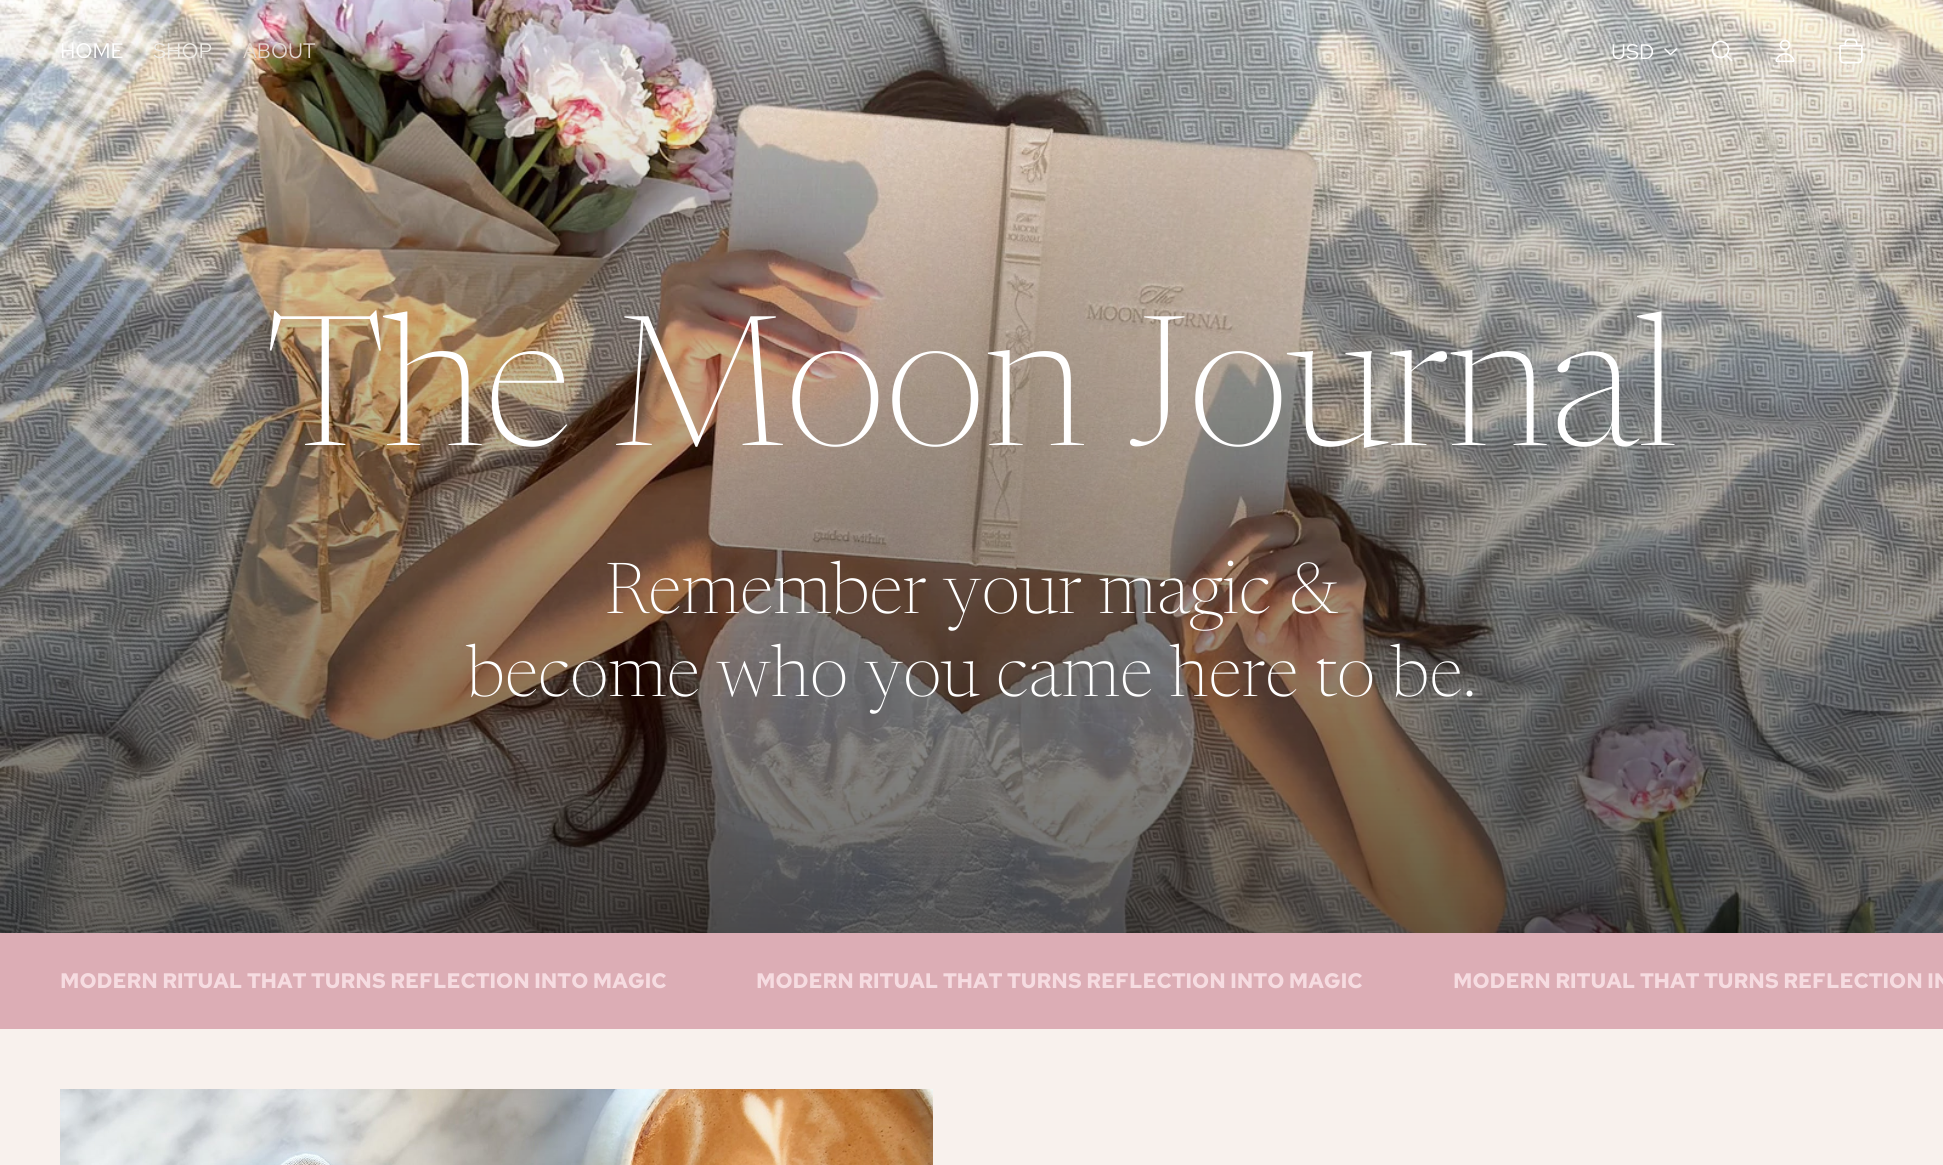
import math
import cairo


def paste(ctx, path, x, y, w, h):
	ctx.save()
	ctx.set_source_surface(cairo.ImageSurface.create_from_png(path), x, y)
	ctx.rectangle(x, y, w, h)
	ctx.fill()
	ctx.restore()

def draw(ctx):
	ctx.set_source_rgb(0.969, 0.945, 0.929)
	ctx.paint()
	paste(ctx, 'media/3.png', 0, 0, 1943, 933)
	ctx.select_font_face('Red Hat Text')
	ctx.set_font_size(21)
	ctx.set_source_rgb(1, 1, 1)
	ctx.move_to(60, 58)
	ctx.show_text('HOME')
	ctx.set_source_rgb(0.933, 0.922, 0.906)
	ctx.move_to(153, 58)
	ctx.show_text('SHOP')
	ctx.set_source_rgb(0.886, 0.843, 0.816)
	ctx.move_to(243, 58)
	ctx.show_text('ABOUT')
	ctx.set_source_rgb(1, 1, 1)
	ctx.move_to(1611, 59)
	ctx.show_text('USD')
	ctx.new_path()
	ctx.move_to(1676.5, 49)
	ctx.line_to(1670.5, 54.5)
	ctx.line_to(1665, 49)
	ctx.set_line_width(1.5)
	ctx.set_line_cap(cairo.LINE_CAP_ROUND)
	ctx.set_line_join(cairo.LINE_JOIN_ROUND)
	ctx.stroke()
	ctx.arc(1720.5, 49.5, 8, 0, 2 * math.pi)
	ctx.set_line_width(1.7)
	ctx.set_line_cap(cairo.LINE_CAP_BUTT)
	ctx.set_line_join(cairo.LINE_JOIN_MITER)
	ctx.stroke()
	ctx.new_path()
	ctx.move_to(1726, 55)
	ctx.line_to(1731.5, 60.5)
	ctx.set_line_cap(cairo.LINE_CAP_ROUND)
	ctx.set_line_join(cairo.LINE_JOIN_ROUND)
	ctx.stroke()
	paste(ctx, 'media/1.png', 1775, 39, 20, 24)
	paste(ctx, 'media/2.png', 1839, 38, 24, 26)
	ctx.select_font_face('Newsreader ExtraLight')
	ctx.set_font_size(180)
	ctx.move_to(266, 445)
	ctx.show_text('The Moon Journal')
	ctx.select_font_face('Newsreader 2 ExtraLight')
	ctx.set_font_size(72)
	ctx.move_to(605, 613)
	ctx.show_text('Remember your magic &')
	ctx.move_to(467, 696)
	ctx.show_text('become who you came here to be.')
	ctx.set_source_rgb(0.863, 0.678, 0.71)
	ctx.rectangle(0, 933, 1943, 96)
	ctx.fill()
	ctx.select_font_face('Red Hat Text', cairo.FONT_SLANT_NORMAL, cairo.FONT_WEIGHT_BOLD)
	ctx.set_font_size(21)
	ctx.set_source_rgb(0.961, 0.863, 0.882)
	for x, y, s in [
		(60, 988, 'MODERN RITUAL THAT TURNS REFLECTION INTO MAGIC'),
		(756, 988, 'MODERN RITUAL THAT TURNS REFLECTION INTO MAGIC'),
		(1453, 988, 'MODERN RITUAL THAT TURNS REFLECTION IN'),
	]:
		ctx.move_to(x, y)
		ctx.show_text(s)
	paste(ctx, 'media/4.png', 60, 1089, 873, 76)


surface = cairo.ImageSurface(cairo.FORMAT_RGB24, 1943, 1165)
ctx = cairo.Context(surface)
options = cairo.FontOptions()
options.set_hint_metrics(cairo.HINT_METRICS_OFF)
options.set_hint_style(cairo.HINT_STYLE_NONE)
ctx.set_font_options(options)
ctx.set_miter_limit(4)
draw(ctx)
surface.write_to_png('image.png')
